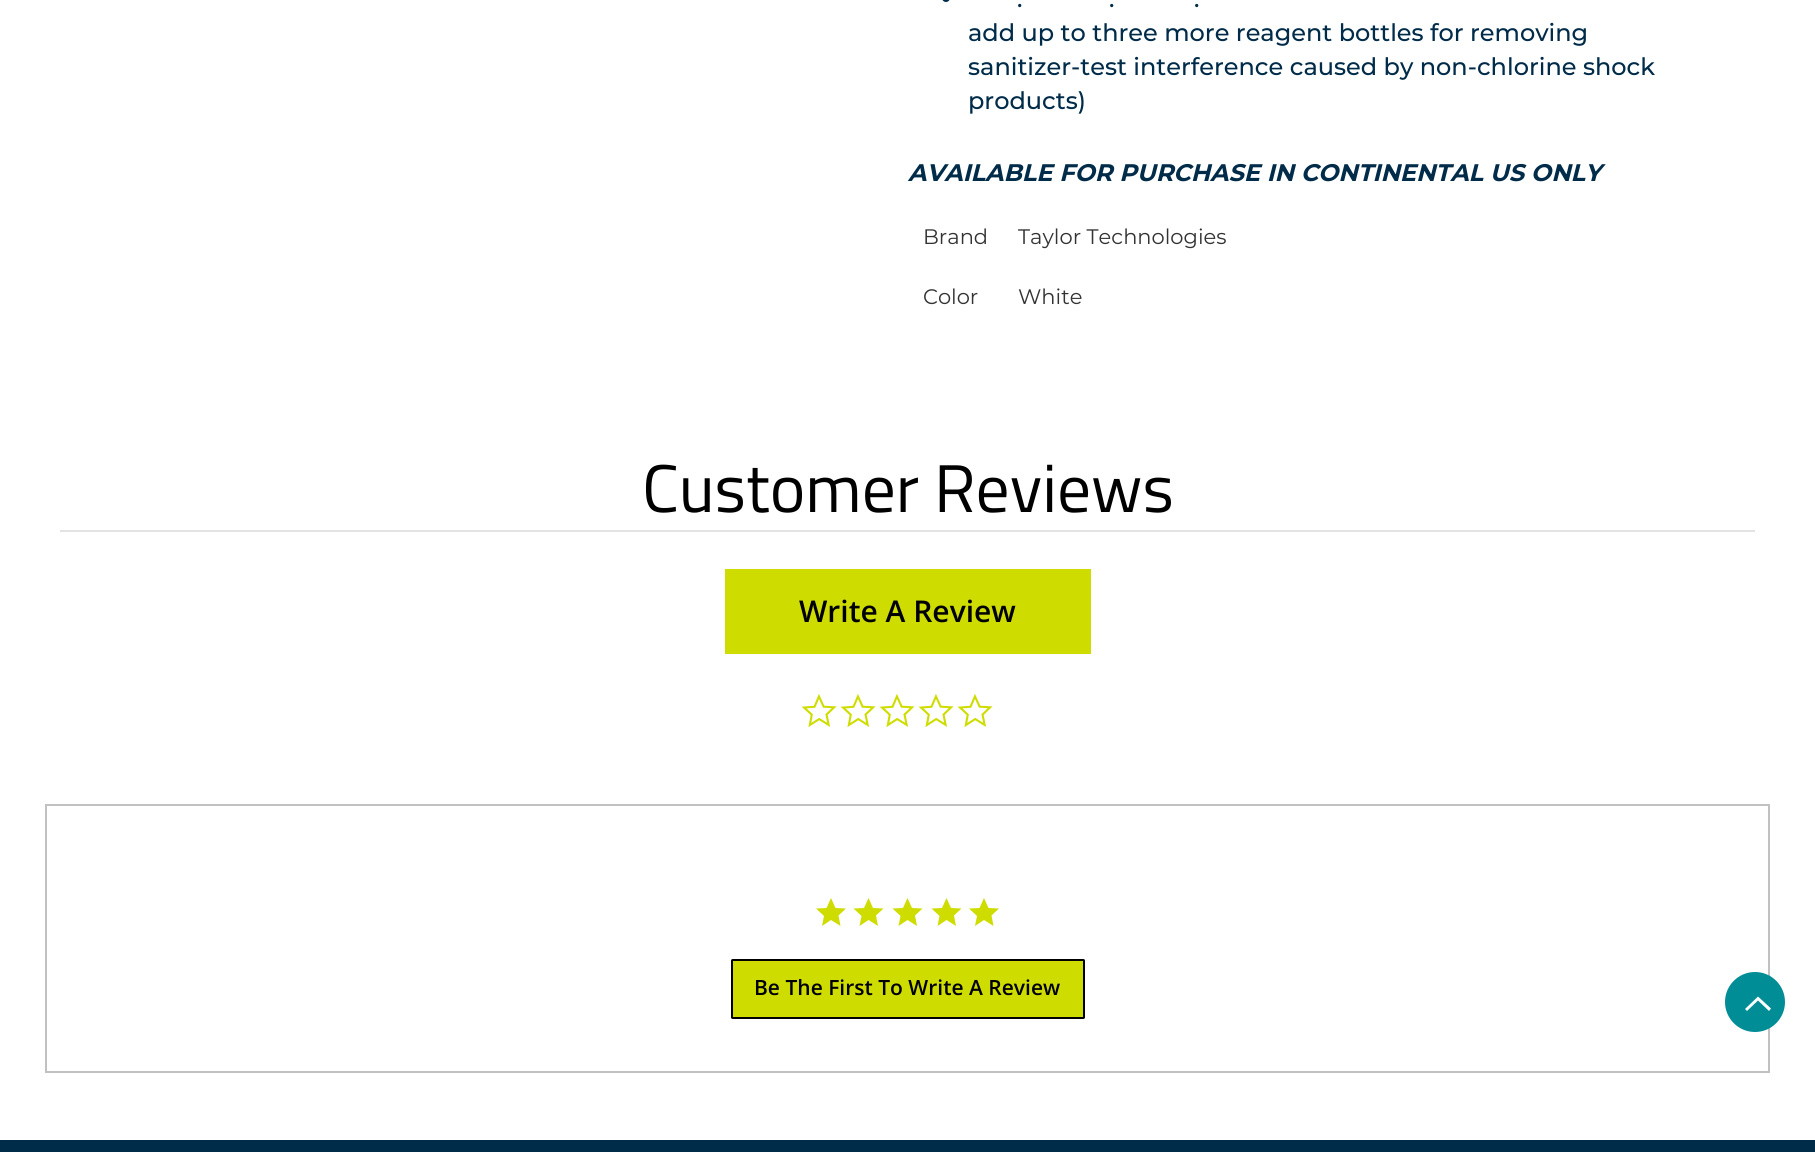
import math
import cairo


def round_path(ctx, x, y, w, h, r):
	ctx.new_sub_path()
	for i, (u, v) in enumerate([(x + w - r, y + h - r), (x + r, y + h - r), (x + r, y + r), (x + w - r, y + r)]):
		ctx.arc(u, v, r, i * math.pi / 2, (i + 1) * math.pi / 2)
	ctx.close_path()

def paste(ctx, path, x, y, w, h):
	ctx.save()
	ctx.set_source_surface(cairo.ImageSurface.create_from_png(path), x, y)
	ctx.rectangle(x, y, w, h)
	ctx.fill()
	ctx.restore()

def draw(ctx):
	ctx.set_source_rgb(1, 1, 1)
	ctx.paint()
	ctx.set_source_rgb(0, 0.169, 0.286)
	round_path(ctx, 942, -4, 8, 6, 4)
	ctx.fill()
	ctx.select_font_face('Montserrat Medium')
	ctx.set_font_size(24)
	for x, y, s in [
		(1017, 7, '.'),
		(1109, 7, '.'),
		(1194, 7, '.'),
		(968, 41, 'add up to three more reagent bottles for removing'),
		(968, 75, 'sanitizer-test interference caused by non-chlorine shock'),
		(968, 109, 'products)'),
	]:
		ctx.move_to(x, y)
		ctx.show_text(s)
	ctx.select_font_face('Montserrat', cairo.FONT_SLANT_ITALIC, cairo.FONT_WEIGHT_BOLD)
	ctx.move_to(908, 181)
	ctx.show_text('AVAILABLE FOR PURCHASE IN CONTINENTAL US ONLY')
	ctx.select_font_face('Montserrat')
	ctx.set_font_size(21)
	ctx.set_source_rgb(0.2, 0.2, 0.2)
	for x, y, s in [
		(923, 244, 'Brand'),
		(1018, 244, 'Taylor Technologies'),
		(923, 304, 'Color'),
		(1018, 304, 'White'),
	]:
		ctx.move_to(x, y)
		ctx.show_text(s)
	ctx.select_font_face('Titillium Web')
	ctx.set_font_size(67.5)
	ctx.set_source_rgb(0, 0, 0)
	ctx.move_to(642, 512)
	ctx.show_text('Customer Reviews')
	ctx.set_source_rgb(0.89, 0.89, 0.89)
	ctx.rectangle(60, 530, 1695, 2)
	ctx.fill()
	ctx.set_source_rgb(0.808, 0.863, 0)
	ctx.rectangle(725, 569, 366, 85)
	ctx.fill()
	ctx.select_font_face('Open Sans SemiBold')
	ctx.set_font_size(30)
	ctx.set_source_rgb(0, 0, 0)
	ctx.move_to(799, 622)
	ctx.show_text('Write A Review')
	paste(ctx, 'media/1.png', 801, 694, 36, 34)
	paste(ctx, 'media/1.png', 840, 694, 36, 34)
	paste(ctx, 'media/1.png', 879, 694, 36, 34)
	paste(ctx, 'media/1.png', 918, 694, 36, 34)
	paste(ctx, 'media/1.png', 957, 694, 36, 34)
	ctx.rectangle(46, 805, 1723, 267)
	ctx.set_source_rgb(0.757, 0.757, 0.757)
	ctx.stroke()
	ctx.set_source_rgb(0.808, 0.863, 0)
	ctx.new_path()
	ctx.move_to(840.5, 926)
	ctx.line_to(831, 920)
	ctx.line_to(822, 926)
	ctx.line_to(824, 916)
	ctx.line_to(816, 908.5)
	ctx.line_to(826.5, 908)
	ctx.line_to(831, 898)
	ctx.line_to(835.5, 908)
	ctx.line_to(846, 908.5)
	ctx.line_to(838.5, 915.5)
	ctx.close_path()
	ctx.fill()
	ctx.new_path()
	ctx.move_to(878, 926)
	ctx.line_to(868.5, 920)
	ctx.line_to(859.5, 926)
	ctx.line_to(861.5, 916)
	ctx.line_to(853.5, 908.5)
	ctx.line_to(864, 908)
	ctx.line_to(868.5, 898)
	ctx.line_to(873, 908)
	ctx.line_to(883.5, 908.5)
	ctx.line_to(876, 915.5)
	ctx.close_path()
	ctx.fill()
	ctx.new_path()
	ctx.move_to(917, 926)
	ctx.line_to(907.5, 920)
	ctx.line_to(898.5, 926)
	ctx.line_to(900.5, 916)
	ctx.line_to(892.5, 908.5)
	ctx.line_to(903, 908)
	ctx.line_to(907.5, 898)
	ctx.line_to(912, 908)
	ctx.line_to(922.5, 908.5)
	ctx.line_to(915, 915.5)
	ctx.close_path()
	ctx.fill()
	ctx.new_path()
	ctx.move_to(956, 926)
	ctx.line_to(946.5, 920)
	ctx.line_to(937.5, 926)
	ctx.line_to(939.5, 916)
	ctx.line_to(931.5, 908.5)
	ctx.line_to(942, 908)
	ctx.line_to(946.5, 898)
	ctx.line_to(951, 908)
	ctx.line_to(961.5, 908.5)
	ctx.line_to(954, 915.5)
	ctx.close_path()
	ctx.fill()
	ctx.new_path()
	ctx.move_to(993.5, 926)
	ctx.line_to(984, 920)
	ctx.line_to(975, 926)
	ctx.line_to(977, 916)
	ctx.line_to(969, 908.5)
	ctx.line_to(979.5, 908)
	ctx.line_to(984, 898)
	ctx.line_to(988.5, 908)
	ctx.line_to(999, 908.5)
	ctx.line_to(991.5, 915.5)
	ctx.close_path()
	ctx.fill()
	round_path(ctx, 732, 960, 352, 58, 0.5)
	ctx.fill_preserve()
	ctx.set_source_rgb(0, 0, 0)
	ctx.stroke()
	ctx.set_font_size(21)
	ctx.move_to(754, 995)
	ctx.show_text('Be The First To Write A Review')
	ctx.set_source_rgb(0, 0.553, 0.588)
	ctx.new_path()
	ctx.arc(1755, 1002, 30, 0, 2 * math.pi)
	ctx.fill()
	ctx.set_source_rgb(1, 1, 1)
	ctx.new_path()
	ctx.move_to(1758, 1000.5)
	ctx.line_to(1769, 1011)
	ctx.line_to(1771, 1008.5)
	ctx.line_to(1758, 996.5)
	ctx.line_to(1745, 1009)
	ctx.line_to(1747, 1011)
	ctx.close_path()
	ctx.fill()
	ctx.set_source_rgb(0, 0.169, 0.286)
	ctx.rectangle(0, 1140, 1815, 12)
	ctx.fill()


surface = cairo.ImageSurface(cairo.FORMAT_RGB24, 1815, 1152)
ctx = cairo.Context(surface)
options = cairo.FontOptions()
options.set_hint_metrics(cairo.HINT_METRICS_OFF)
options.set_hint_style(cairo.HINT_STYLE_NONE)
ctx.set_font_options(options)
ctx.set_miter_limit(4)
draw(ctx)
surface.write_to_png('image.png')
